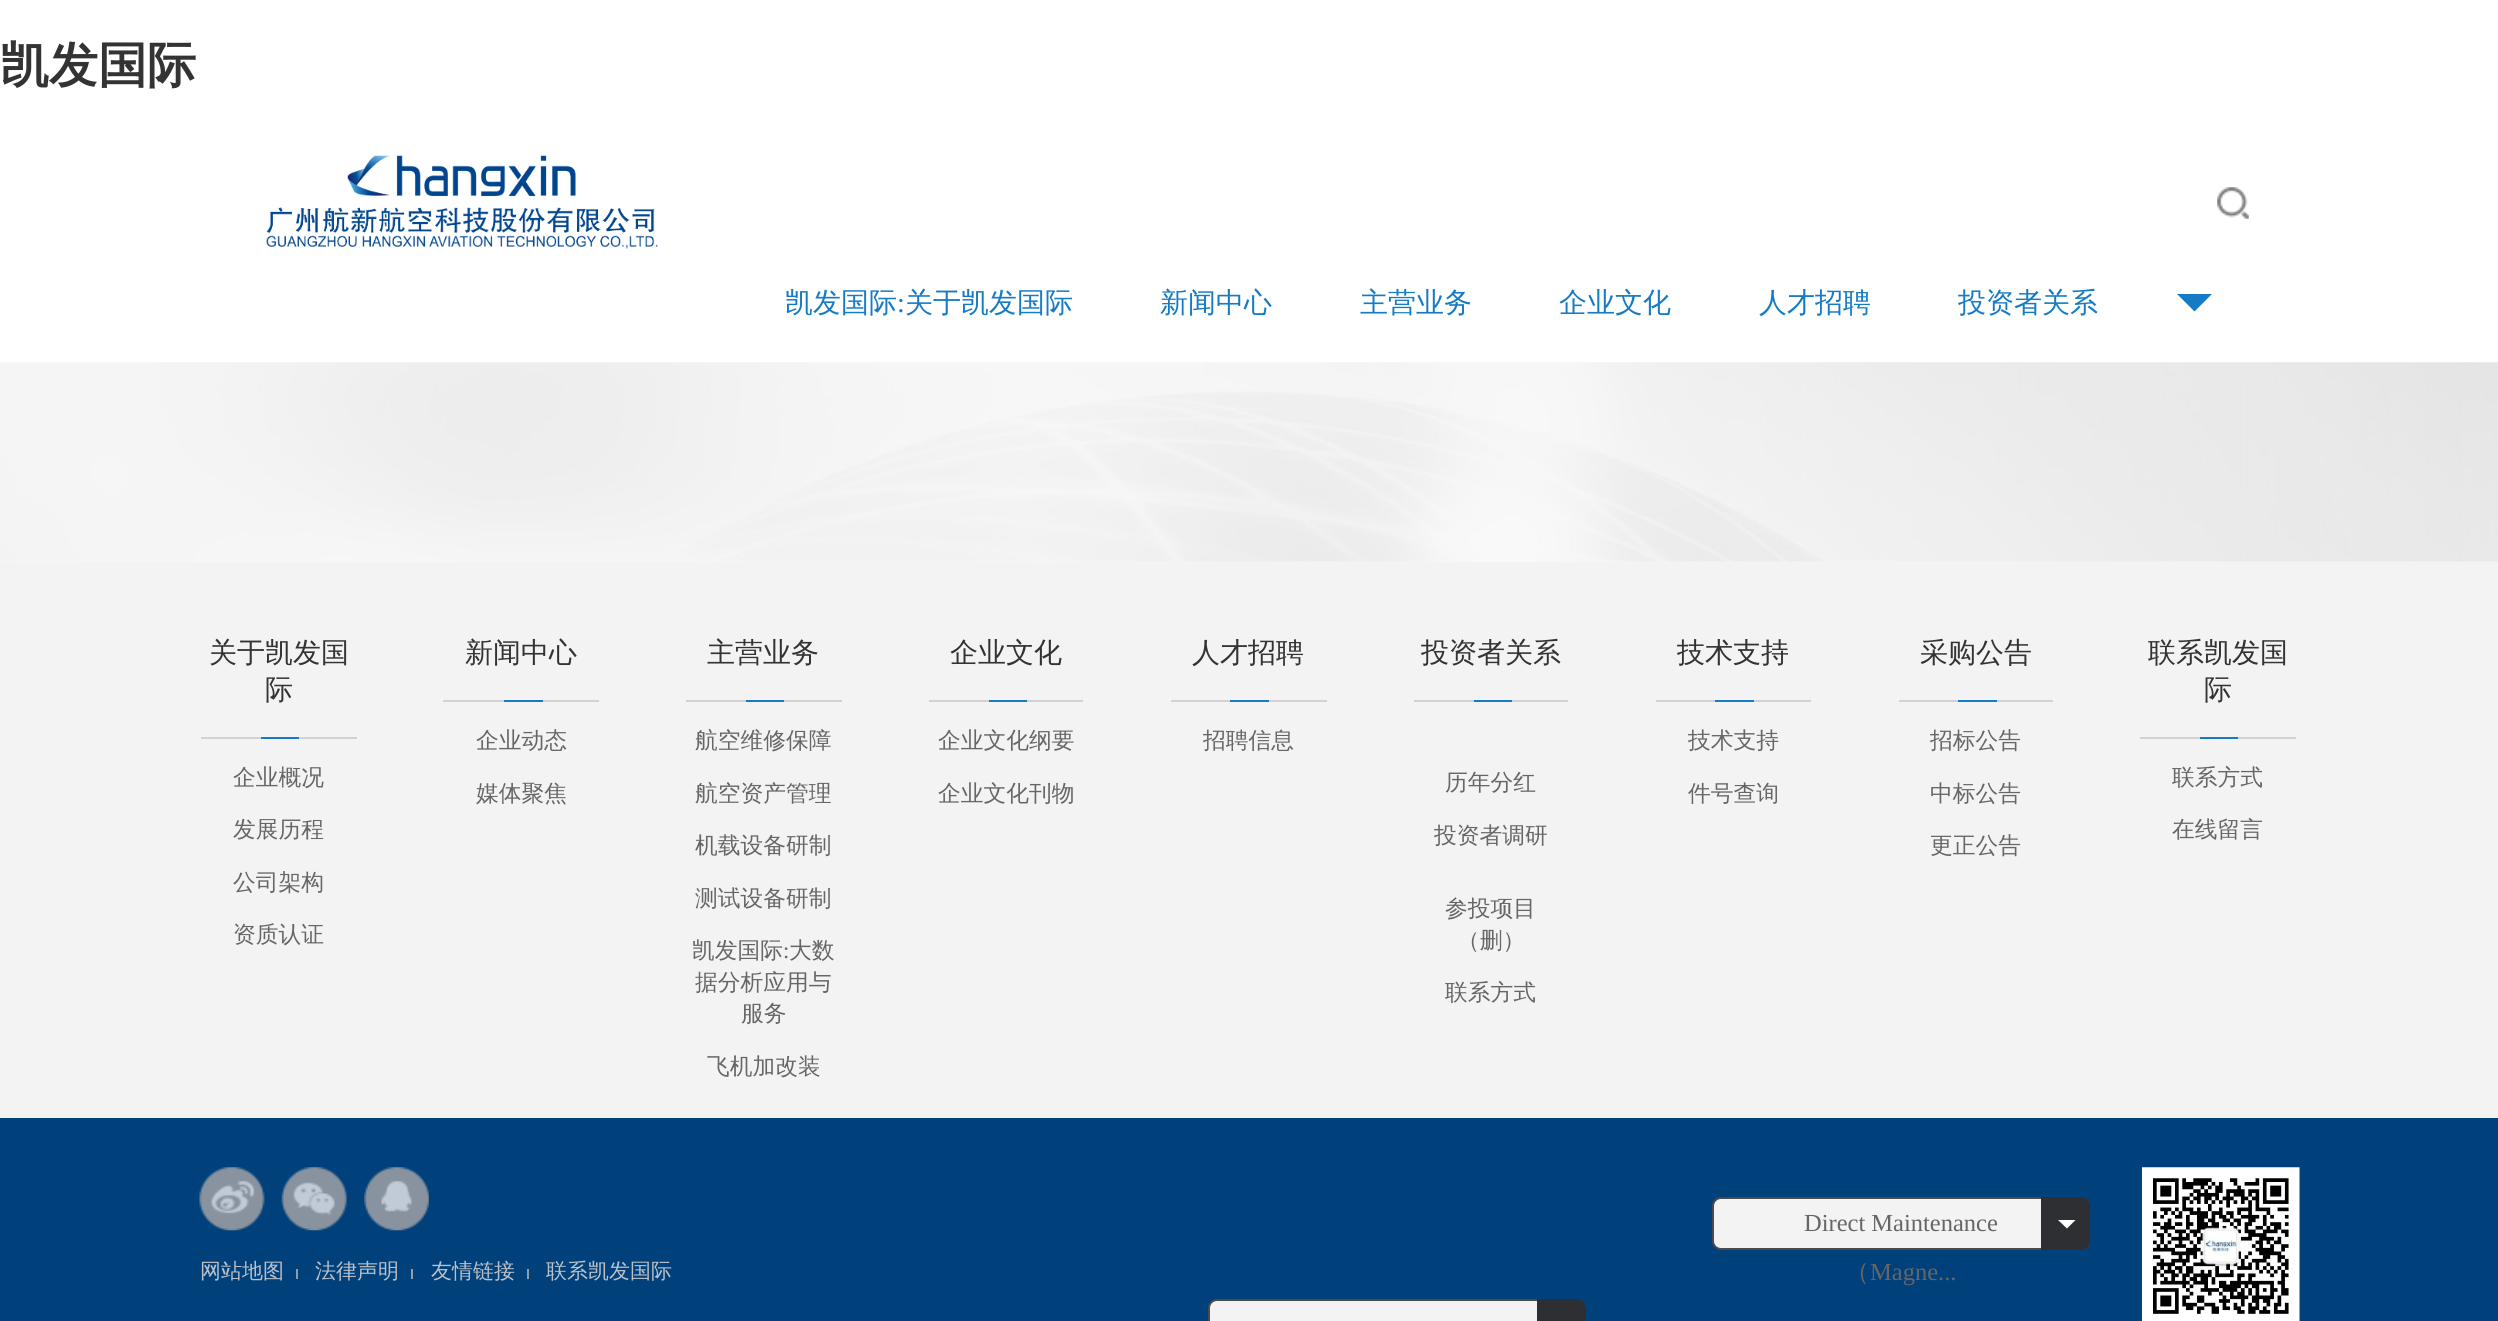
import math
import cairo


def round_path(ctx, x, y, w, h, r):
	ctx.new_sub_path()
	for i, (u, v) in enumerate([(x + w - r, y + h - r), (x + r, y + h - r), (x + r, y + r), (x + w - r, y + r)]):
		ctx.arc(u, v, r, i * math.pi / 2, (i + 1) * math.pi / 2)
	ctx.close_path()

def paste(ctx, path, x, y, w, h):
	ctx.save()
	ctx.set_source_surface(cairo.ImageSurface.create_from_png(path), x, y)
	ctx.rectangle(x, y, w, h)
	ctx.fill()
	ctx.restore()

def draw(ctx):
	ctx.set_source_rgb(1, 1, 1)
	ctx.paint()
	ctx.select_font_face('WenQuanYi Zen Hei', cairo.FONT_SLANT_NORMAL, cairo.FONT_WEIGHT_BOLD)
	ctx.set_font_size(49)
	ctx.set_source_rgb(0.2, 0.2, 0.2)
	ctx.move_to(0, 82)
	ctx.show_text('凯发国际')
	paste(ctx, 'media/1.png', 266, 155, 392, 94)
	paste(ctx, 'media/2.png', 2217, 187, 32, 32)
	ctx.select_font_face('WenQuanYi Zen Hei Medium')
	ctx.set_font_size(28)
	ctx.set_source_rgb(0.082, 0.482, 0.769)
	ctx.move_to(785, 312)
	ctx.show_text('凯发国际')
	ctx.select_font_face('Liberation Serif')
	ctx.move_to(897, 312)
	ctx.show_text(':')
	ctx.select_font_face('WenQuanYi Zen Hei Medium')
	for x, y, s in [
		(905, 312, '关于凯发国际'),
		(1160, 312, '新闻中心'),
		(1360, 312, '主营业务'),
		(1559, 312, '企业文化'),
		(1759, 312, '人才招聘'),
		(1958, 312, '投资者关系'),
	]:
		ctx.move_to(x, y)
		ctx.show_text(s)
	ctx.new_path()
	ctx.move_to(2177, 294)
	ctx.line_to(2212, 294)
	ctx.line_to(2194.5, 311.5)
	ctx.close_path()
	ctx.fill()
	paste(ctx, 'media/3.png', 0, 362, 2498, 200)
	ctx.set_source_rgb(0.953, 0.953, 0.953)
	ctx.rectangle(0, 562, 2498, 556)
	ctx.fill()
	ctx.set_source_rgb(0.824, 0.824, 0.824)
	ctx.rectangle(201, 737, 156, 2)
	ctx.fill()
	ctx.set_source_rgb(0.2, 0.2, 0.2)
	ctx.move_to(209, 662)
	ctx.show_text('关于凯发国')
	ctx.move_to(265, 699)
	ctx.show_text('际')
	ctx.set_source_rgb(0.082, 0.482, 0.769)
	ctx.rectangle(261, 737, 38, 2)
	ctx.fill()
	ctx.set_font_size(22.75)
	ctx.set_source_rgb(0.4, 0.4, 0.4)
	for x, y, s in [
		(233, 785, '企业概况'),
		(233, 837, '发展历程'),
		(233, 890, '公司架构'),
		(233, 942, '资质认证'),
	]:
		ctx.move_to(x, y)
		ctx.show_text(s)
	ctx.set_source_rgb(0.824, 0.824, 0.824)
	ctx.rectangle(443, 700, 156, 2)
	ctx.fill()
	ctx.set_font_size(28)
	ctx.set_source_rgb(0.2, 0.2, 0.2)
	ctx.move_to(465, 662)
	ctx.show_text('新闻中心')
	ctx.set_source_rgb(0.082, 0.482, 0.769)
	ctx.rectangle(504, 700, 39, 2)
	ctx.fill()
	ctx.set_font_size(22.75)
	ctx.set_source_rgb(0.4, 0.4, 0.4)
	ctx.move_to(476, 748)
	ctx.show_text('企业动态')
	ctx.move_to(476, 801)
	ctx.show_text('媒体聚焦')
	ctx.set_source_rgb(0.824, 0.824, 0.824)
	ctx.rectangle(686, 700, 156, 2)
	ctx.fill()
	ctx.set_font_size(28)
	ctx.set_source_rgb(0.2, 0.2, 0.2)
	ctx.move_to(707, 662)
	ctx.show_text('主营业务')
	ctx.set_source_rgb(0.082, 0.482, 0.769)
	ctx.rectangle(746, 700, 38, 2)
	ctx.fill()
	ctx.set_font_size(22.75)
	ctx.set_source_rgb(0.4, 0.4, 0.4)
	for x, y, s in [
		(695, 748, '航空维修保障'),
		(695, 801, '航空资产管理'),
		(695, 853, '机载设备研制'),
		(695, 906, '测试设备研制'),
		(692, 958, '凯发国际'),
	]:
		ctx.move_to(x, y)
		ctx.show_text(s)
	ctx.select_font_face('Liberation Serif')
	ctx.move_to(783, 958)
	ctx.show_text(':')
	ctx.select_font_face('WenQuanYi Zen Hei Medium')
	for x, y, s in [
		(789, 958, '大数'),
		(695, 990, '据分析应用与'),
		(741, 1021, '服务'),
		(707, 1074, '飞机加改装'),
	]:
		ctx.move_to(x, y)
		ctx.show_text(s)
	ctx.set_source_rgb(0.824, 0.824, 0.824)
	ctx.rectangle(929, 700, 154, 2)
	ctx.fill()
	ctx.set_font_size(28)
	ctx.set_source_rgb(0.2, 0.2, 0.2)
	ctx.move_to(950, 662)
	ctx.show_text('企业文化')
	ctx.set_source_rgb(0.082, 0.482, 0.769)
	ctx.rectangle(989, 700, 38, 2)
	ctx.fill()
	ctx.set_font_size(22.75)
	ctx.set_source_rgb(0.4, 0.4, 0.4)
	ctx.move_to(938, 748)
	ctx.show_text('企业文化纲要')
	ctx.move_to(938, 801)
	ctx.show_text('企业文化刊物')
	ctx.set_source_rgb(0.824, 0.824, 0.824)
	ctx.rectangle(1171, 700, 156, 2)
	ctx.fill()
	ctx.set_font_size(28)
	ctx.set_source_rgb(0.2, 0.2, 0.2)
	ctx.move_to(1192, 662)
	ctx.show_text('人才招聘')
	ctx.set_source_rgb(0.082, 0.482, 0.769)
	ctx.rectangle(1230, 700, 39, 2)
	ctx.fill()
	ctx.set_font_size(22.75)
	ctx.set_source_rgb(0.4, 0.4, 0.4)
	ctx.move_to(1203, 748)
	ctx.show_text('招聘信息')
	ctx.set_source_rgb(0.824, 0.824, 0.824)
	ctx.rectangle(1414, 700, 154, 2)
	ctx.fill()
	ctx.set_font_size(28)
	ctx.set_source_rgb(0.2, 0.2, 0.2)
	ctx.move_to(1421, 662)
	ctx.show_text('投资者关系')
	ctx.set_source_rgb(0.082, 0.482, 0.769)
	ctx.rectangle(1474, 700, 38, 2)
	ctx.fill()
	ctx.set_font_size(22.75)
	ctx.set_source_rgb(0.4, 0.4, 0.4)
	for x, y, s in [
		(1445, 790, '历年分红'),
		(1434, 843, '投资者调研'),
		(1445, 916, '参投项目'),
		(1457, 948, '（删）'),
		(1445, 1000, '联系方式'),
	]:
		ctx.move_to(x, y)
		ctx.show_text(s)
	ctx.set_source_rgb(0.824, 0.824, 0.824)
	ctx.rectangle(1656, 700, 155, 2)
	ctx.fill()
	ctx.set_font_size(28)
	ctx.set_source_rgb(0.2, 0.2, 0.2)
	ctx.move_to(1677, 662)
	ctx.show_text('技术支持')
	ctx.set_source_rgb(0.082, 0.482, 0.769)
	ctx.rectangle(1715, 700, 39, 2)
	ctx.fill()
	ctx.set_font_size(22.75)
	ctx.set_source_rgb(0.4, 0.4, 0.4)
	ctx.move_to(1688, 748)
	ctx.show_text('技术支持')
	ctx.move_to(1688, 801)
	ctx.show_text('件号查询')
	ctx.set_source_rgb(0.824, 0.824, 0.824)
	ctx.rectangle(1899, 700, 154, 2)
	ctx.fill()
	ctx.set_font_size(28)
	ctx.set_source_rgb(0.2, 0.2, 0.2)
	ctx.move_to(1920, 662)
	ctx.show_text('采购公告')
	ctx.set_source_rgb(0.082, 0.482, 0.769)
	ctx.rectangle(1958, 700, 39, 2)
	ctx.fill()
	ctx.set_font_size(22.75)
	ctx.set_source_rgb(0.4, 0.4, 0.4)
	for x, y, s in [
		(1930, 748, '招标公告'),
		(1930, 801, '中标公告'),
		(1930, 853, '更正公告'),
	]:
		ctx.move_to(x, y)
		ctx.show_text(s)
	ctx.set_source_rgb(0.824, 0.824, 0.824)
	ctx.rectangle(2140, 737, 156, 2)
	ctx.fill()
	ctx.set_font_size(28)
	ctx.set_source_rgb(0.2, 0.2, 0.2)
	ctx.move_to(2148, 662)
	ctx.show_text('联系凯发国')
	ctx.move_to(2204, 699)
	ctx.show_text('际')
	ctx.set_source_rgb(0.082, 0.482, 0.769)
	ctx.rectangle(2200, 737, 38, 2)
	ctx.fill()
	ctx.set_font_size(22.75)
	ctx.set_source_rgb(0.4, 0.4, 0.4)
	ctx.move_to(2172, 785)
	ctx.show_text('联系方式')
	ctx.move_to(2172, 837)
	ctx.show_text('在线留言')
	ctx.set_source_rgb(0, 0.255, 0.482)
	ctx.rectangle(0, 1118, 2498, 203)
	ctx.fill()
	paste(ctx, 'media/4.png', 199, 1167, 66, 64)
	paste(ctx, 'media/5.png', 281, 1167, 66, 64)
	paste(ctx, 'media/6.png', 364, 1167, 65, 64)
	ctx.set_font_size(21)
	ctx.set_source_rgb(0.733, 0.757, 0.788)
	ctx.move_to(200, 1278)
	ctx.show_text('网站地图')
	ctx.set_source_rgb(0.573, 0.612, 0.659)
	ctx.rectangle(296, 1269, 2, 10)
	ctx.fill()
	ctx.set_source_rgb(0.733, 0.757, 0.788)
	ctx.move_to(315, 1278)
	ctx.show_text('法律声明')
	ctx.set_source_rgb(0.573, 0.612, 0.659)
	ctx.rectangle(411, 1269, 2, 10)
	ctx.fill()
	ctx.set_source_rgb(0.733, 0.757, 0.788)
	ctx.move_to(431, 1278)
	ctx.show_text('友情链接')
	ctx.set_source_rgb(0.573, 0.612, 0.659)
	ctx.rectangle(527, 1269, 2, 10)
	ctx.fill()
	ctx.set_source_rgb(0.733, 0.757, 0.788)
	ctx.move_to(546, 1278)
	ctx.show_text('联系凯发国际')
	ctx.set_source_rgb(0.953, 0.953, 0.953)
	round_path(ctx, 1713, 1198, 376, 51, 8)
	ctx.fill_preserve()
	ctx.set_source_rgb(0.294, 0.294, 0.294)
	ctx.stroke()
	ctx.select_font_face('Liberation Serif')
	ctx.set_font_size(24.5)
	ctx.set_source_rgb(0.4, 0.4, 0.4)
	ctx.move_to(1804, 1231)
	ctx.show_text('Direct Maintenance')
	ctx.set_source_rgb(0.176, 0.184, 0.196)
	ctx.new_path()
	ctx.move_to(2041, 1197)
	ctx.line_to(2081, 1197)
	ctx.curve_to(2086, 1197, 2090, 1201, 2090, 1206)
	ctx.line_to(2090, 1241)
	ctx.curve_to(2090, 1246, 2086, 1250, 2081, 1250)
	ctx.line_to(2041, 1250)
	ctx.close_path()
	ctx.fill()
	ctx.set_source_rgb(1, 1, 1)
	ctx.new_path()
	ctx.move_to(2058, 1220)
	ctx.line_to(2075.5, 1220)
	ctx.line_to(2067, 1228.5)
	ctx.close_path()
	ctx.fill()
	ctx.select_font_face('WenQuanYi Zen Hei Medium')
	ctx.set_source_rgb(0.4, 0.4, 0.4)
	ctx.move_to(1845, 1280)
	ctx.show_text('（')
	ctx.select_font_face('Liberation Serif')
	ctx.move_to(1870, 1280)
	ctx.show_text('Magne...')
	paste(ctx, 'media/7.png', 2142, 1167, 158, 154)
	ctx.set_source_rgb(0.953, 0.953, 0.953)
	round_path(ctx, 1209, 1300, 376, 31, 8)
	ctx.fill_preserve()
	ctx.set_source_rgb(0.294, 0.294, 0.294)
	ctx.stroke()
	ctx.set_source_rgb(0.176, 0.184, 0.196)
	ctx.new_path()
	ctx.move_to(1537, 1299)
	ctx.line_to(1577, 1299)
	ctx.curve_to(1582, 1299, 1586, 1303, 1586, 1308)
	ctx.line_to(1586, 1321)
	ctx.curve_to(1586, 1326, 1582, 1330, 1577, 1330)
	ctx.line_to(1537, 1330)
	ctx.close_path()
	ctx.fill()


surface = cairo.ImageSurface(cairo.FORMAT_RGB24, 2498, 1321)
ctx = cairo.Context(surface)
options = cairo.FontOptions()
options.set_hint_metrics(cairo.HINT_METRICS_OFF)
options.set_hint_style(cairo.HINT_STYLE_NONE)
ctx.set_font_options(options)
ctx.set_miter_limit(4)
draw(ctx)
surface.write_to_png('image.png')
